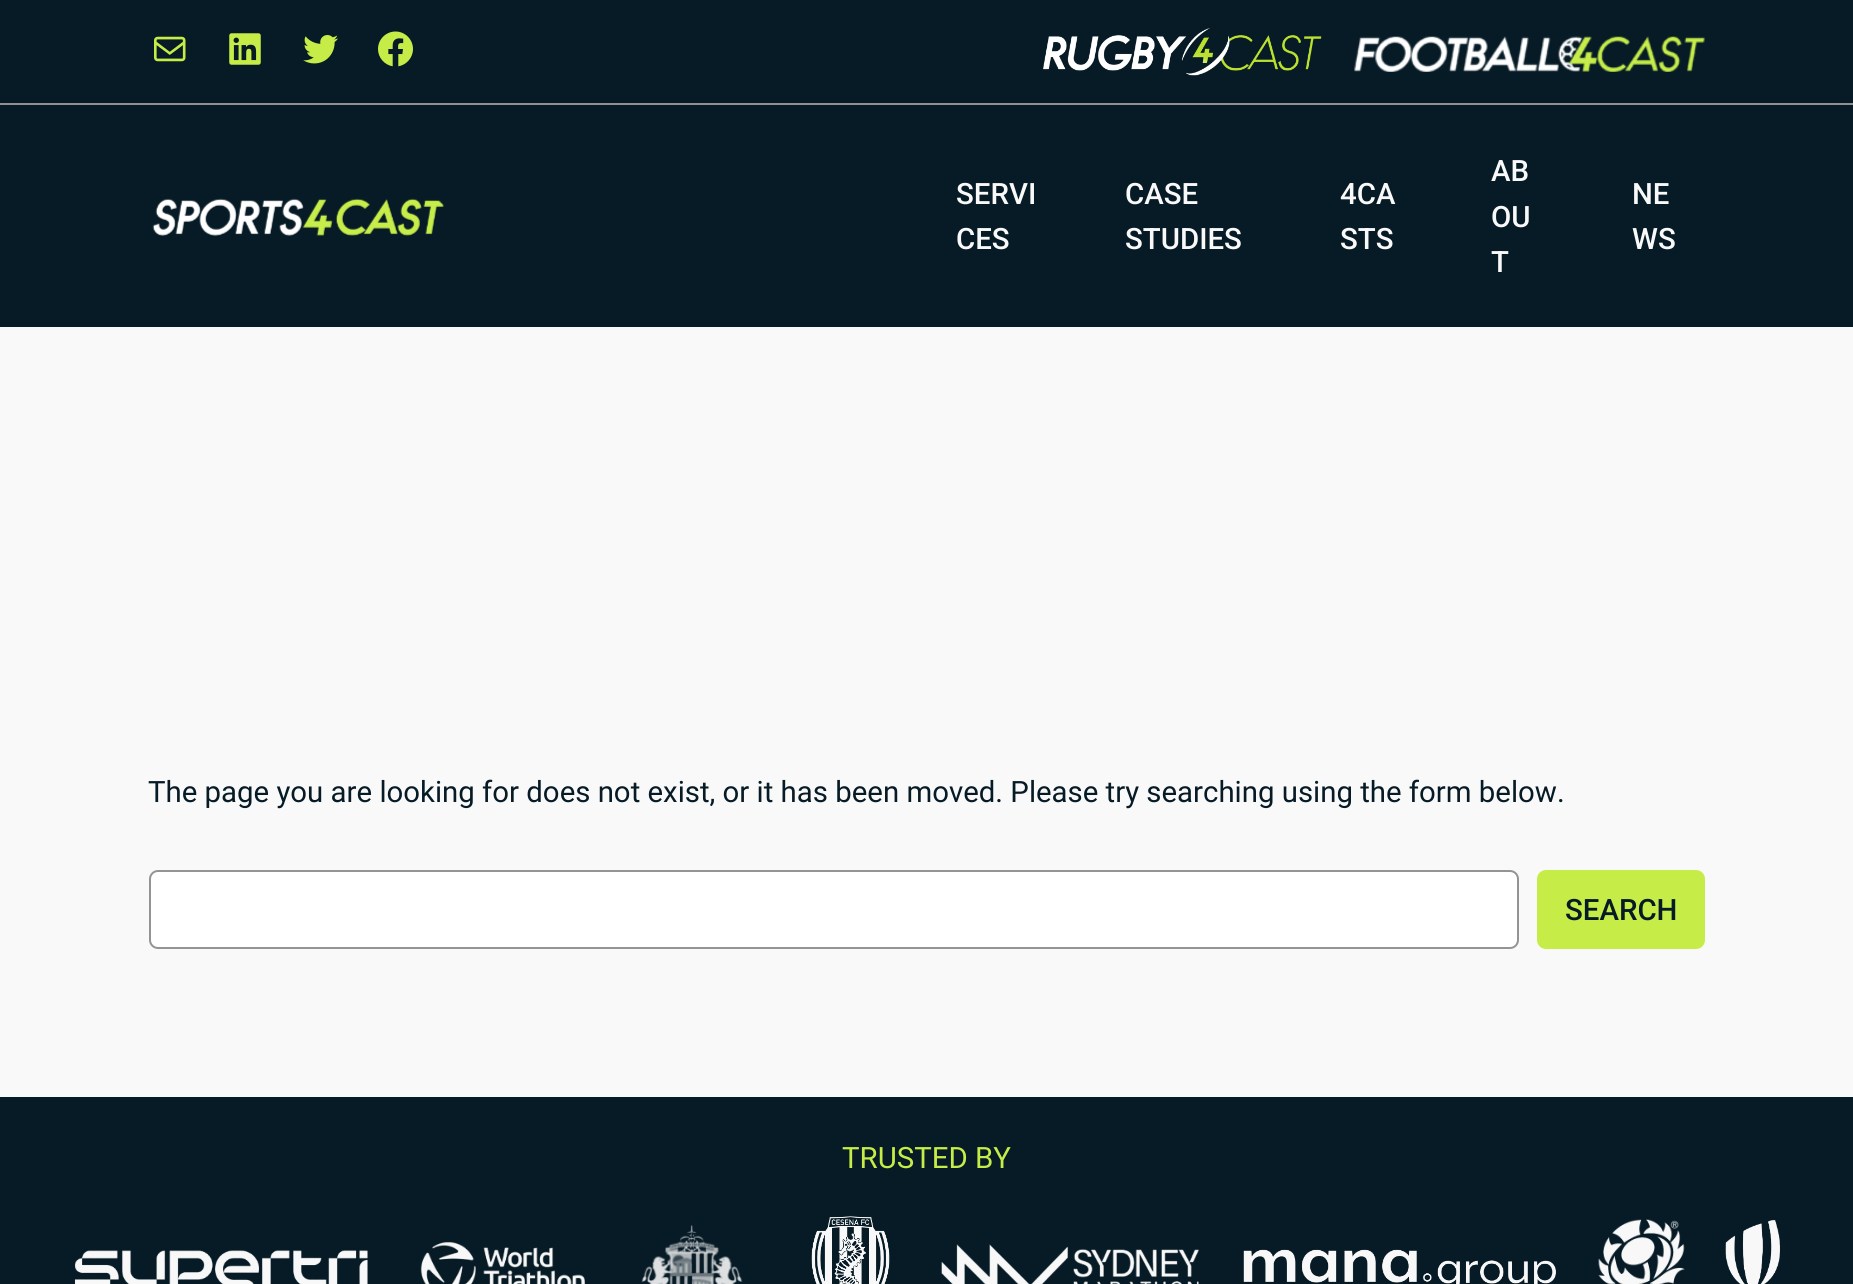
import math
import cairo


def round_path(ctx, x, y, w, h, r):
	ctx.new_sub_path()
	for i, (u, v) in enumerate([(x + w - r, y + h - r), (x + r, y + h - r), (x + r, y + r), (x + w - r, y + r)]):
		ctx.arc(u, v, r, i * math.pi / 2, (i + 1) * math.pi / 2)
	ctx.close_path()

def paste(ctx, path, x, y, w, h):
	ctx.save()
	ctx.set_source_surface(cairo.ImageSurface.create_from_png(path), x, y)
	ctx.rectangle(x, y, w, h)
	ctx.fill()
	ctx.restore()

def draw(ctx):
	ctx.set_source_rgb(0.976, 0.976, 0.976)
	ctx.paint()
	ctx.set_source_rgb(0.027, 0.106, 0.149)
	ctx.rectangle(0, 0, 1853, 103)
	ctx.fill()
	paste(ctx, 'media/1.png', 154, 36, 32, 26)
	paste(ctx, 'media/2.png', 229, 33, 32, 32)
	paste(ctx, 'media/3.png', 303, 35, 35, 29)
	paste(ctx, 'media/4.png', 378, 31, 35, 36)
	paste(ctx, 'media/5.png', 1043, 28, 279, 48)
	paste(ctx, 'media/6.png', 1354, 36, 351, 36)
	ctx.rectangle(0, 105, 1853, 222)
	ctx.fill()
	ctx.set_source_rgb(0.565, 0.565, 0.565)
	ctx.rectangle(0, 103, 1853, 2)
	ctx.fill()
	paste(ctx, 'media/7.png', 152, 198, 292, 38)
	ctx.select_font_face('Roboto Medium')
	ctx.set_font_size(29.4)
	ctx.set_source_rgb(0.976, 0.976, 0.976)
	for x, y, s in [
		(956, 204, 'SERVI'),
		(956, 249, 'CES'),
		(1125, 204, 'CASE'),
		(1125, 249, 'STUDIES'),
		(1340, 204, '4CA'),
		(1340, 249, 'STS'),
		(1491, 181, 'AB'),
		(1491, 227, 'OU'),
		(1491, 272, 'T'),
		(1632, 204, 'NE'),
		(1632, 249, 'WS'),
	]:
		ctx.move_to(x, y)
		ctx.show_text(s)
	ctx.select_font_face('Roboto')
	ctx.set_source_rgb(0.027, 0.106, 0.149)
	ctx.move_to(148, 802)
	ctx.show_text('The page you are looking for does not exist, or it has been moved. Please try searching using the form below.')
	ctx.set_source_rgb(1, 1, 1)
	round_path(ctx, 150, 871, 1368, 77, 8)
	ctx.fill_preserve()
	ctx.set_source_rgb(0.58, 0.58, 0.58)
	ctx.stroke()
	ctx.set_source_rgb(0.776, 0.929, 0.278)
	round_path(ctx, 1537, 870, 168, 79, 9)
	ctx.fill()
	ctx.select_font_face('Roboto Medium')
	ctx.set_source_rgb(0.027, 0.106, 0.149)
	ctx.move_to(1565, 920)
	ctx.show_text('SEARCH')
	ctx.rectangle(0, 1097, 1853, 187)
	ctx.fill()
	ctx.select_font_face('Roboto')
	ctx.set_source_rgb(0.776, 0.929, 0.278)
	ctx.move_to(842, 1168)
	ctx.show_text('TRUSTED BY')
	paste(ctx, 'media/8.png', 74, 1250, 294, 34)
	paste(ctx, 'media/9.png', 420, 1241, 165, 43)
	paste(ctx, 'media/10.png', 641, 1225, 102, 59)
	paste(ctx, 'media/11.png', 811, 1216, 79, 68)
	paste(ctx, 'media/12.png', 941, 1244, 258, 40)
	paste(ctx, 'media/13.png', 1243, 1249, 313, 35)
	paste(ctx, 'media/14.png', 1598, 1219, 87, 65)
	paste(ctx, 'media/15.png', 1725, 1220, 55, 64)


surface = cairo.ImageSurface(cairo.FORMAT_RGB24, 1853, 1284)
ctx = cairo.Context(surface)
options = cairo.FontOptions()
options.set_hint_metrics(cairo.HINT_METRICS_OFF)
options.set_hint_style(cairo.HINT_STYLE_NONE)
ctx.set_font_options(options)
ctx.set_miter_limit(4)
draw(ctx)
surface.write_to_png('image.png')
